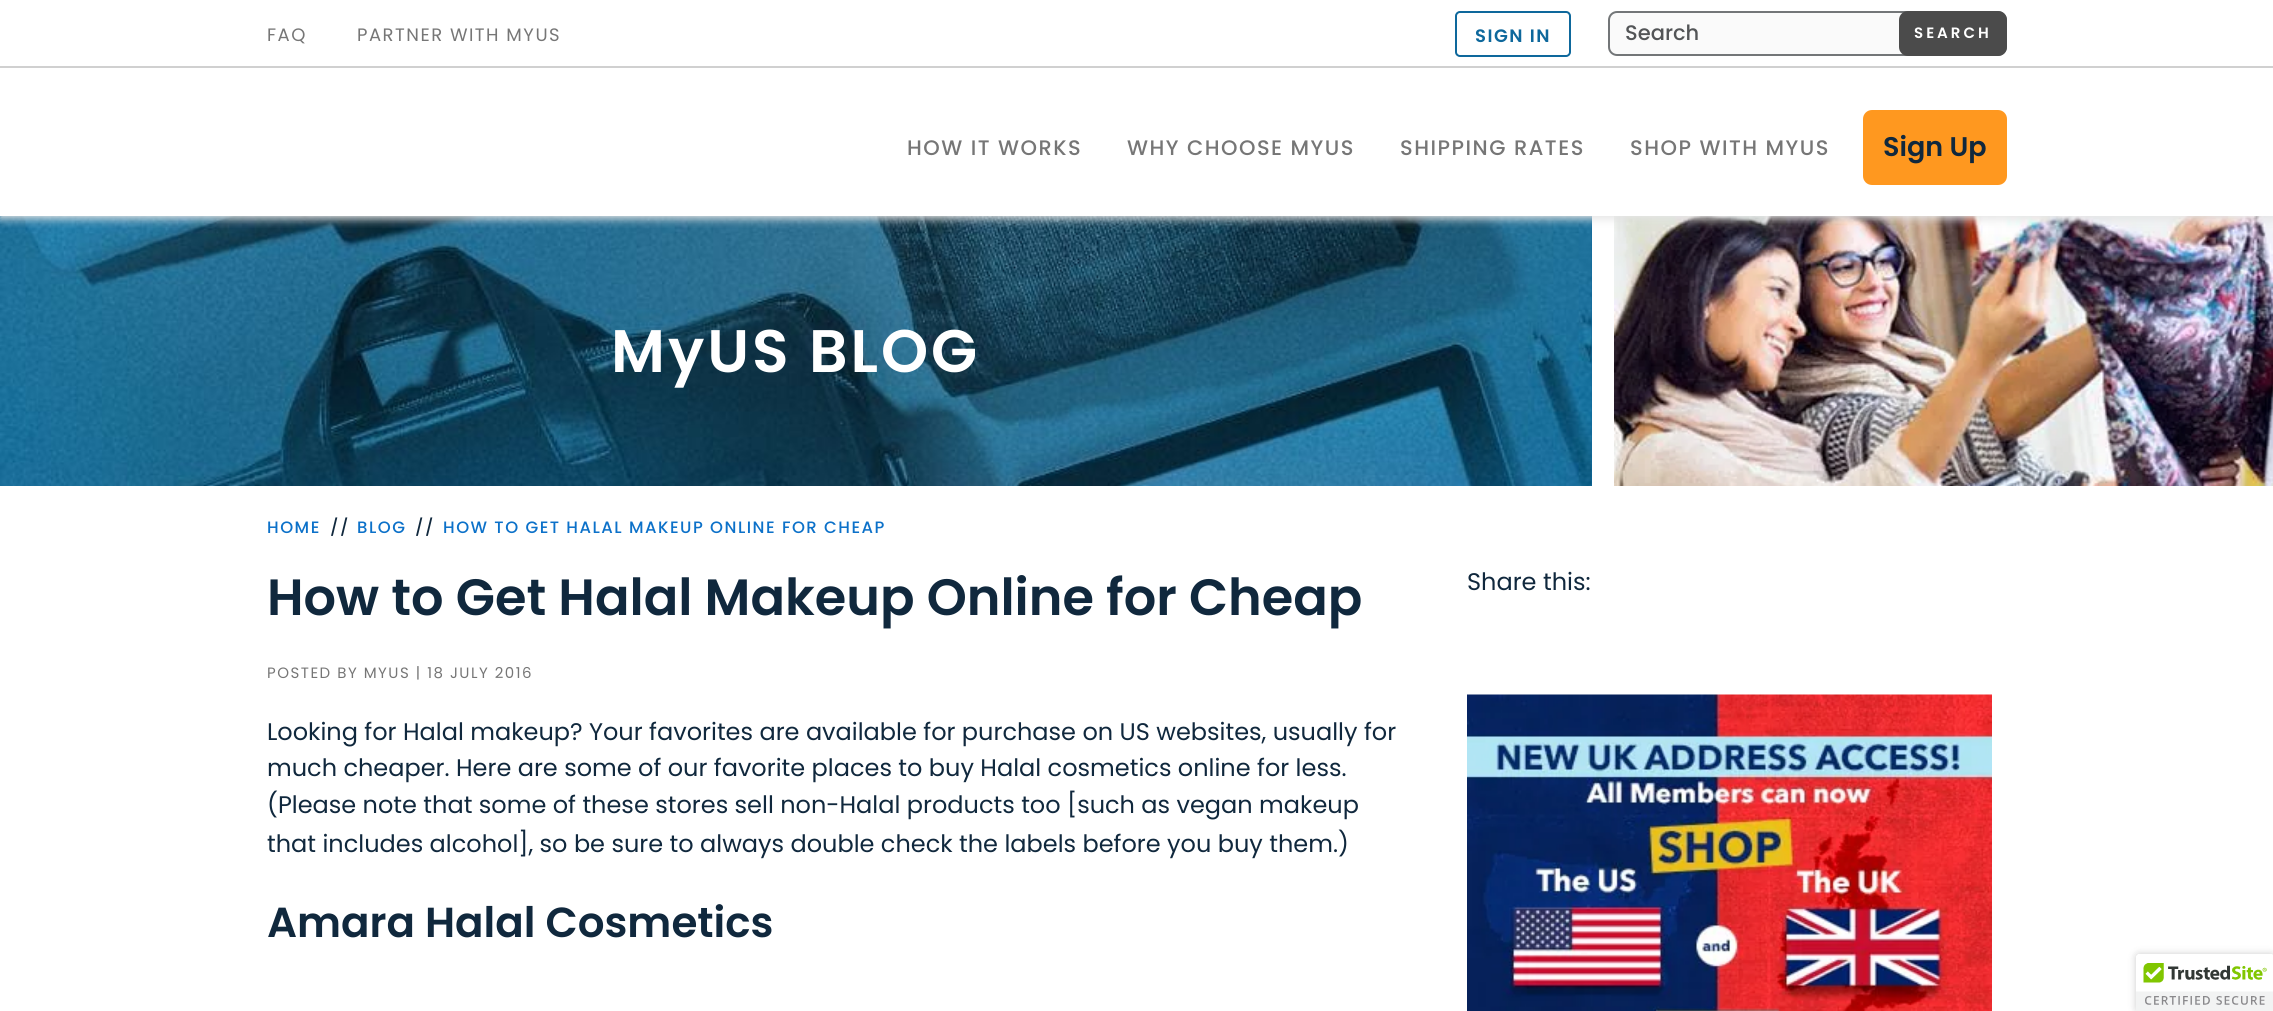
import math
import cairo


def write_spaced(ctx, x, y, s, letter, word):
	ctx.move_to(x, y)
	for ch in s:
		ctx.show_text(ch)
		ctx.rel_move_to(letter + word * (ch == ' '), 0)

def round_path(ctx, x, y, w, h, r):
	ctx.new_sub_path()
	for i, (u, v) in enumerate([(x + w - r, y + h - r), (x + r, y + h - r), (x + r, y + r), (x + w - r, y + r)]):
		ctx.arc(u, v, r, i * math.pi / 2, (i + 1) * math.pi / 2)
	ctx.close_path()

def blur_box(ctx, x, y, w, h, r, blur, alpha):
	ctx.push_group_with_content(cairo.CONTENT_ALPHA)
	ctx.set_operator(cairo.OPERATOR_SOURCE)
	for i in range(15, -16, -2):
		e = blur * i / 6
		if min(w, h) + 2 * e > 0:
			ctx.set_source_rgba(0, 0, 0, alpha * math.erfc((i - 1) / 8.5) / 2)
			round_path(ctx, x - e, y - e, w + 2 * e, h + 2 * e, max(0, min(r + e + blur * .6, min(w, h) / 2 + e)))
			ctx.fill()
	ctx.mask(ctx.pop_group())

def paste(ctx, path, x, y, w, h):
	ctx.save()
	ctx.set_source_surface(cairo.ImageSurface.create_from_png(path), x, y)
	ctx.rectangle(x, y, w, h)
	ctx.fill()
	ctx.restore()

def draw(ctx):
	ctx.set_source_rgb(1, 1, 1)
	ctx.paint()
	ctx.set_source_rgb(0.055, 0.408, 0.612)
	ctx.rectangle(1591, 216, 1, 270)
	ctx.fill()
	paste(ctx, 'media/1.png', 0, 216, 1592, 270)
	paste(ctx, 'media/2.png', 1614, 216, 659, 270)
	ctx.save()
	ctx.rectangle(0, 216, 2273, 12)
	ctx.clip()
	ctx.set_source_rgb(0.894, 0.894, 0.894)
	blur_box(ctx, 0, 3, 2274, 216, 0, 4.5, 1)
	ctx.restore()
	ctx.select_font_face('Poppins')
	ctx.set_font_size(18)
	ctx.set_source_rgb(0.463, 0.463, 0.463)
	write_spaced(ctx, 267, 41, 'FAQ', 1.5, 0)
	write_spaced(ctx, 357, 41, 'PARTNER WITH MYUS', 1.5, 0)
	round_path(ctx, 1456, 12, 114, 44, 4)
	ctx.set_source_rgb(0.055, 0.408, 0.612)
	ctx.stroke()
	ctx.select_font_face('Poppins SemiBold')
	write_spaced(ctx, 1475, 42, 'SIGN IN', 1.5, 0)
	ctx.set_source_rgb(0.98, 0.98, 0.98)
	round_path(ctx, 1609, 12, 397, 43, 8)
	ctx.fill_preserve()
	ctx.set_source_rgb(0.451, 0.463, 0.471)
	ctx.stroke()
	ctx.select_font_face('Poppins Medium')
	ctx.set_font_size(21)
	ctx.set_source_rgb(0.325, 0.333, 0.341)
	ctx.move_to(1625, 40)
	ctx.show_text('Search')
	ctx.set_source_rgb(0.294, 0.294, 0.294)
	round_path(ctx, 1899, 11, 108, 45, 9)
	ctx.fill()
	ctx.select_font_face('Poppins SemiBold')
	ctx.set_font_size(15)
	ctx.set_source_rgb(1, 1, 1)
	write_spaced(ctx, 1914, 38, 'SEARCH', 3, 0)
	ctx.select_font_face('Poppins Medium')
	ctx.set_font_size(21)
	ctx.set_source_rgb(0.463, 0.463, 0.463)
	for x, y, s in [
		(907, 155, 'HOW IT WORKS'),
		(1127, 155, 'WHY CHOOSE MYUS'),
		(1400, 155, 'SHIPPING RATES'),
		(1630, 155, 'SHOP WITH MYUS'),
	]:
		write_spaced(ctx, x, y, s, 1.5, 0)
	ctx.set_source_rgb(1, 0.596, 0.122)
	round_path(ctx, 1863, 110, 144, 75, 9)
	ctx.fill()
	ctx.select_font_face('Poppins SemiBold')
	ctx.set_font_size(27)
	ctx.set_source_rgb(0.063, 0.157, 0.239)
	ctx.move_to(1883, 156)
	ctx.show_text('Sign Up')
	ctx.set_source_rgb(0.816, 0.816, 0.816)
	ctx.rectangle(0, 66, 2273, 2)
	ctx.fill()
	ctx.set_font_size(60)
	ctx.set_source_rgb(1, 1, 1)
	write_spaced(ctx, 611, 372, 'MyUS BLOG', 3, 0)
	ctx.select_font_face('Poppins Medium')
	ctx.set_font_size(16.5)
	ctx.set_source_rgb(0.047, 0.443, 0.788)
	write_spaced(ctx, 267, 533, 'HOME', 1.5, 0)
	ctx.set_source_rgb(0.063, 0.157, 0.239)
	write_spaced(ctx, 330, 533, '//', 1.5, 0)
	ctx.set_source_rgb(0.047, 0.443, 0.788)
	write_spaced(ctx, 357, 533, 'BLOG', 1.5, 0)
	ctx.set_source_rgb(0.063, 0.157, 0.239)
	write_spaced(ctx, 415, 533, '//', 1.5, 0)
	ctx.set_source_rgb(0.047, 0.443, 0.788)
	write_spaced(ctx, 443, 533, 'HOW TO GET HALAL MAKEUP ONLINE FOR CHEAP', 1.5, 0)
	ctx.select_font_face('Poppins SemiBold')
	ctx.set_font_size(51)
	ctx.set_source_rgb(0.063, 0.157, 0.239)
	ctx.move_to(267, 615)
	ctx.show_text('How to Get Halal Makeup Online for Cheap')
	ctx.select_font_face('Poppins')
	ctx.set_font_size(15)
	ctx.set_source_rgb(0.463, 0.463, 0.463)
	write_spaced(ctx, 267, 678, 'POSTED BY MYUS | 18 JULY 2016', 1.5, 0)
	ctx.set_font_size(24)
	ctx.set_source_rgb(0.063, 0.157, 0.239)
	for x, y, s in [
		(267, 740, 'Looking for Halal makeup? Your favorites are available for purchase on US websites, usually for'),
		(267, 776, 'much cheaper. Here are some of our favorite places to buy Halal cosmetics online for less.'),
		(267, 813, '(Please note that some of these stores sell non-Halal products too [such as vegan makeup'),
		(267, 852, 'that includes alcohol], so be sure to always double check the labels before you buy them.)'),
	]:
		ctx.move_to(x, y)
		ctx.show_text(s)
	ctx.select_font_face('Poppins SemiBold')
	ctx.set_font_size(42)
	ctx.move_to(267, 937)
	ctx.show_text('Amara Halal Cosmetics')
	ctx.select_font_face('Poppins')
	ctx.set_font_size(24)
	ctx.move_to(1467, 590)
	ctx.show_text('Share this:')
	paste(ctx, 'media/3.png', 1467, 694, 525, 317)
	ctx.set_source_rgb(0, 0, 0)
	blur_box(ctx, 2136, 954, 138, 57, 3, 4, 0.2)
	ctx.set_source_rgb(1, 1, 1)
	ctx.new_path()
	ctx.move_to(2139, 954)
	ctx.line_to(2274, 954)
	ctx.line_to(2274, 1011)
	ctx.line_to(2136, 1011)
	ctx.line_to(2136, 957)
	ctx.curve_to(2136, 955.5, 2137.5, 954, 2139, 954)
	ctx.close_path()
	ctx.fill()
	paste(ctx, 'media/4.png', 2136, 954, 137, 57)


surface = cairo.ImageSurface(cairo.FORMAT_RGB24, 2273, 1011)
ctx = cairo.Context(surface)
options = cairo.FontOptions()
options.set_hint_metrics(cairo.HINT_METRICS_OFF)
options.set_hint_style(cairo.HINT_STYLE_NONE)
ctx.set_font_options(options)
ctx.set_miter_limit(4)
draw(ctx)
surface.write_to_png('image.png')
